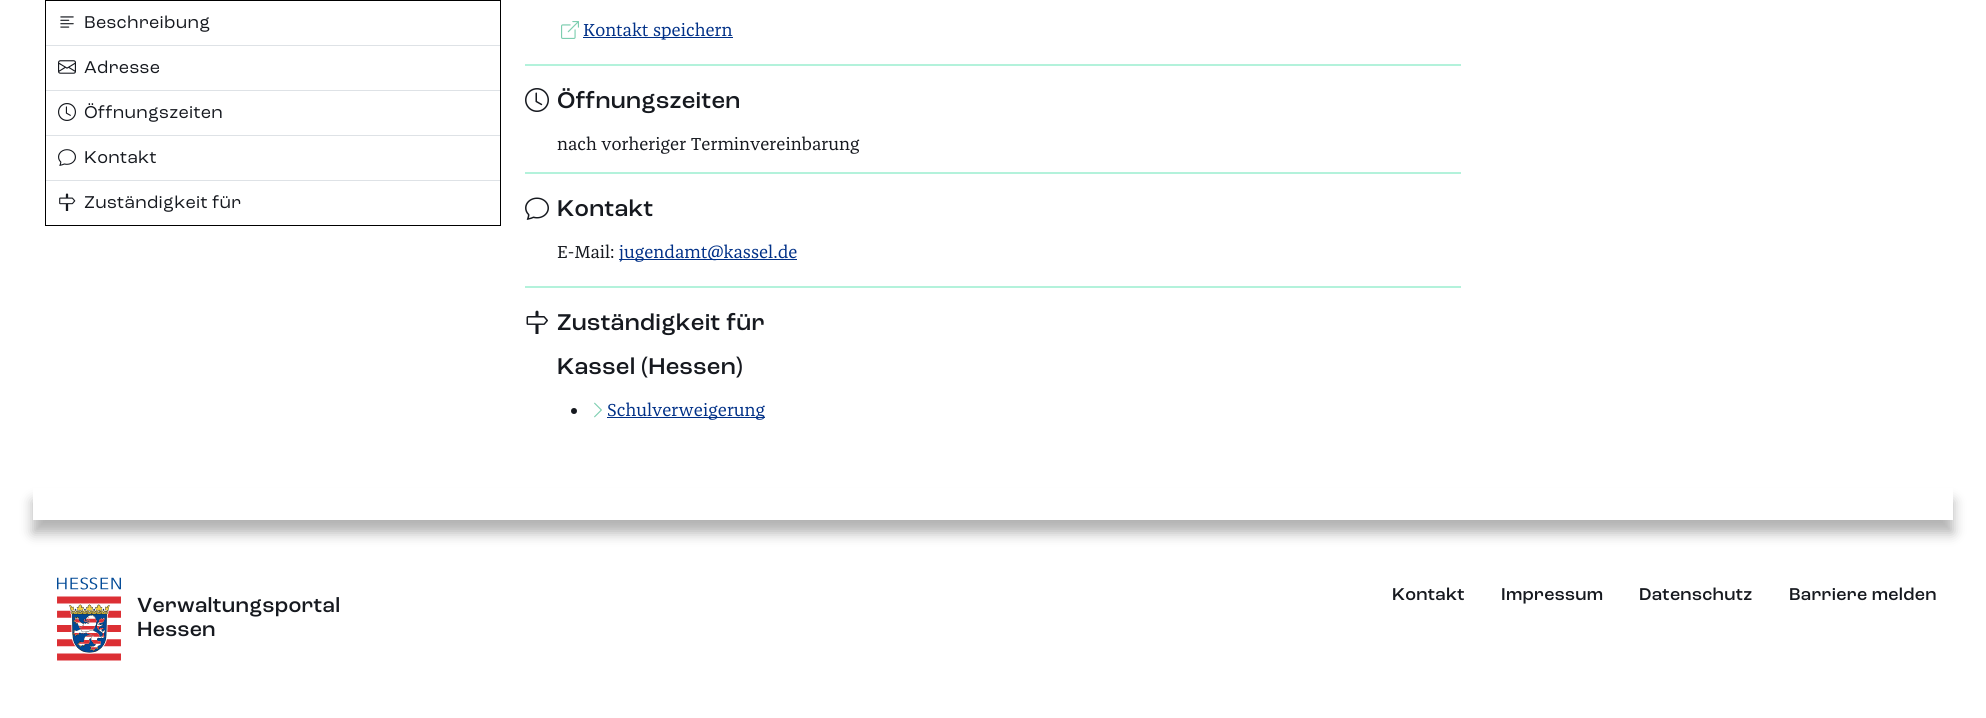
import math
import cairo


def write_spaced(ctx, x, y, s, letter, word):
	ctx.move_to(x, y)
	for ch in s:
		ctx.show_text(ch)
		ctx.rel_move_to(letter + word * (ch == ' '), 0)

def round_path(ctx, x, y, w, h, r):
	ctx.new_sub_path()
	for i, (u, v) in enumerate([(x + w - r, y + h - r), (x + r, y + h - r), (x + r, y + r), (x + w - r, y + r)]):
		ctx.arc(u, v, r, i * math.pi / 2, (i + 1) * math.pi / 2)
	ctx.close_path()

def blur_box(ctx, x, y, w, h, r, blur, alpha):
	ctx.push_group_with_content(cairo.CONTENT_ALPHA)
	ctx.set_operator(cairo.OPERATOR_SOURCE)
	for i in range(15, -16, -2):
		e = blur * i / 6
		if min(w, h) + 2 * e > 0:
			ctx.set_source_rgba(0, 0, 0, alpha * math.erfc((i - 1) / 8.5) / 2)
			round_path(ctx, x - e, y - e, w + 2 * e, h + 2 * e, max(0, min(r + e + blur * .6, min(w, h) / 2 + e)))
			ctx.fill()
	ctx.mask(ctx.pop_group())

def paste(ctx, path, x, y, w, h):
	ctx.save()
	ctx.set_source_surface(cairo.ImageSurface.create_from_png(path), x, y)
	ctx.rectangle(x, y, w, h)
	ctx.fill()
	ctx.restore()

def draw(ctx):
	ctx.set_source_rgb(1, 1, 1)
	ctx.paint()
	ctx.rectangle(45.5, 0.5, 455, 225)
	ctx.set_source_rgb(0, 0, 0)
	ctx.set_line_width(1)
	ctx.stroke()
	paste(ctx, 'media/1.png', 60, 16, 14, 12)
	ctx.select_font_face('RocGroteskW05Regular')
	ctx.set_font_size(18)
	ctx.set_source_rgb(0.086, 0.098, 0.122)
	write_spaced(ctx, 84, 28, 'Beschreibung', 0.3, 0)
	ctx.set_source_rgb(0.871, 0.886, 0.902)
	ctx.rectangle(46, 45, 454, 1)
	ctx.fill()
	paste(ctx, 'media/2.png', 58, 60, 18, 14)
	ctx.set_source_rgb(0.086, 0.098, 0.122)
	write_spaced(ctx, 84, 73, 'Adresse', 0.3, 0)
	ctx.set_source_rgb(0.871, 0.886, 0.902)
	ctx.rectangle(46, 90, 454, 1)
	ctx.fill()
	paste(ctx, 'media/3.png', 58, 103, 18, 18)
	ctx.set_source_rgb(0.086, 0.098, 0.122)
	write_spaced(ctx, 84, 118, 'Öffnungszeiten', 0.3, 0)
	ctx.set_source_rgb(0.871, 0.886, 0.902)
	ctx.rectangle(46, 135, 454, 1)
	ctx.fill()
	paste(ctx, 'media/4.png', 58, 149, 18, 17)
	ctx.set_source_rgb(0.086, 0.098, 0.122)
	write_spaced(ctx, 84, 163, 'Kontakt', 0.3, 0)
	ctx.set_source_rgb(0.871, 0.886, 0.902)
	ctx.rectangle(46, 180, 454, 1)
	ctx.fill()
	paste(ctx, 'media/5.png', 59, 193, 17, 18)
	ctx.set_source_rgb(0.086, 0.098, 0.122)
	write_spaced(ctx, 84, 208, 'Zuständigkeit für', 0.3, 0)
	paste(ctx, 'media/6.png', 561, 21, 18, 18)
	ctx.set_source_rgb(0, 0.188, 0.529)
	ctx.rectangle(583, 37, 150, 1)
	ctx.fill()
	ctx.select_font_face('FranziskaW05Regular')
	ctx.move_to(583, 36)
	ctx.show_text('Kontakt speichern')
	ctx.set_source_rgb(0.702, 0.949, 0.859)
	ctx.rectangle(525, 64, 936, 2)
	ctx.fill()
	paste(ctx, 'media/7.png', 525, 88, 24, 24)
	ctx.select_font_face('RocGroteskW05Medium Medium')
	ctx.set_font_size(24)
	ctx.set_source_rgb(0.086, 0.098, 0.122)
	write_spaced(ctx, 557, 108, 'Öffnungszeiten', 0.3, 0)
	ctx.select_font_face('FranziskaW05Regular')
	ctx.set_font_size(18)
	ctx.move_to(557, 150)
	ctx.show_text('nach vorheriger Terminvereinbarung')
	ctx.set_source_rgb(0.702, 0.949, 0.859)
	ctx.rectangle(525, 172, 936, 2)
	ctx.fill()
	paste(ctx, 'media/8.png', 525, 197, 24, 23)
	ctx.select_font_face('RocGroteskW05Medium Medium')
	ctx.set_font_size(24)
	ctx.set_source_rgb(0.086, 0.098, 0.122)
	write_spaced(ctx, 557, 216, 'Kontakt', 0.3, 0)
	ctx.select_font_face('FranziskaW05Regular')
	ctx.set_font_size(18)
	ctx.move_to(557, 258)
	ctx.show_text('E-Mail:')
	ctx.set_source_rgb(0, 0.188, 0.529)
	ctx.rectangle(619, 259, 178, 1)
	ctx.fill()
	ctx.move_to(619, 258)
	ctx.show_text('jugendamt@kassel.de')
	ctx.set_source_rgb(0.702, 0.949, 0.859)
	ctx.rectangle(525, 286, 936, 2)
	ctx.fill()
	paste(ctx, 'media/9.png', 526, 310, 22, 24)
	ctx.select_font_face('RocGroteskW05Medium Medium')
	ctx.set_font_size(24)
	ctx.set_source_rgb(0.086, 0.098, 0.122)
	write_spaced(ctx, 557, 330, 'Zuständigkeit für', 0.3, 0)
	write_spaced(ctx, 557, 374, 'Kassel (Hessen)', 0.3, 0)
	ctx.new_path()
	ctx.arc(574, 411, 3, 0, 2 * math.pi)
	ctx.fill()
	paste(ctx, 'media/10.png', 594, 402, 8, 16)
	ctx.set_source_rgb(0, 0.188, 0.529)
	ctx.rectangle(607, 417, 158, 1)
	ctx.fill()
	ctx.select_font_face('FranziskaW05Regular')
	ctx.set_font_size(18)
	ctx.move_to(607, 416)
	ctx.show_text('Schulverweigerung')
	ctx.save()
	ctx.set_fill_rule(cairo.FILL_RULE_EVEN_ODD)
	ctx.new_path()
	ctx.move_to(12, 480)
	ctx.line_to(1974, 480)
	ctx.line_to(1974, 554)
	ctx.line_to(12, 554)
	ctx.close_path()
	ctx.move_to(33, 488)
	ctx.line_to(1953, 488)
	ctx.line_to(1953, 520)
	ctx.line_to(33, 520)
	ctx.close_path()
	ctx.clip()
	ctx.set_source_rgb(0, 0, 0)
	blur_box(ctx, 33, 501, 1920, 32, 0, 6.5, 0.3)
	ctx.restore()
	paste(ctx, 'media/11.png', 57, 577, 64, 84)
	ctx.select_font_face('RocGroteskW05Medium Medium')
	ctx.set_font_size(21.5)
	ctx.set_source_rgb(0.086, 0.098, 0.122)
	write_spaced(ctx, 137, 612, 'Verwaltungsportal', 0.3, 0)
	write_spaced(ctx, 137, 636, 'Hessen', 0.3, 0)
	ctx.set_font_size(18)
	for x, y, s in [
		(1392, 600, 'Kontakt'),
		(1501, 600, 'Impressum'),
		(1639, 600, 'Datenschutz'),
		(1789, 600, 'Barriere melden'),
	]:
		write_spaced(ctx, x, y, s, 0.3, 0)


surface = cairo.ImageSurface(cairo.FORMAT_RGB24, 1986, 718)
ctx = cairo.Context(surface)
options = cairo.FontOptions()
options.set_hint_metrics(cairo.HINT_METRICS_OFF)
options.set_hint_style(cairo.HINT_STYLE_NONE)
ctx.set_font_options(options)
ctx.set_miter_limit(4)
draw(ctx)
surface.write_to_png('image.png')
